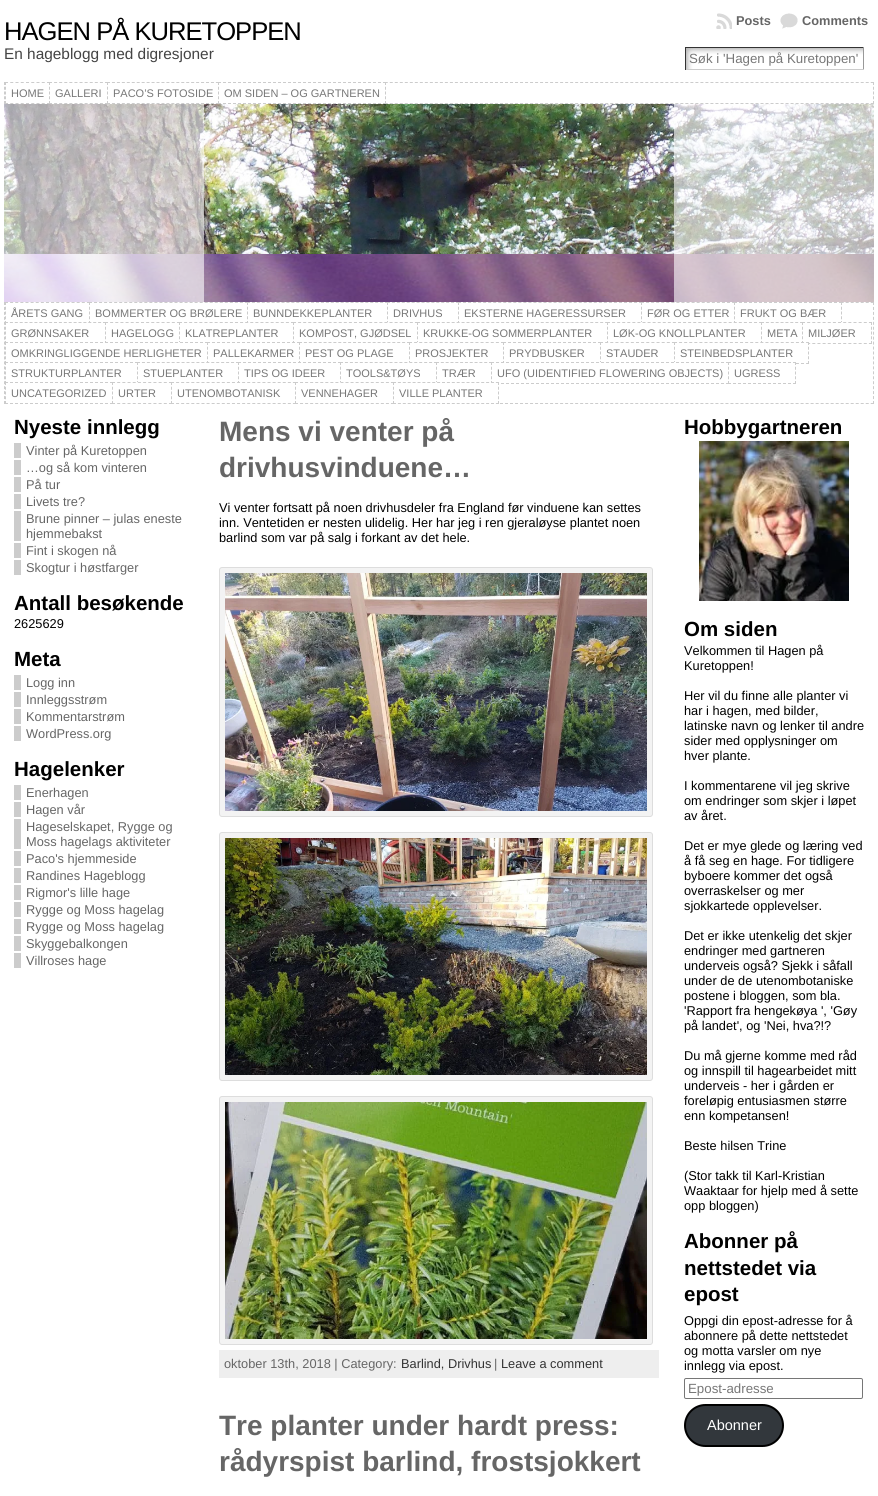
import math
import cairo


def write_spaced(ctx, x, y, s, letter, word):
	ctx.move_to(x, y)
	for ch in s:
		ctx.show_text(ch)
		ctx.rel_move_to(letter + word * (ch == ' '), 0)

def round_path(ctx, x, y, w, h, r):
	ctx.new_sub_path()
	for i, (u, v) in enumerate([(x + w - r, y + h - r), (x + r, y + h - r), (x + r, y + r), (x + w - r, y + r)]):
		ctx.arc(u, v, r, i * math.pi / 2, (i + 1) * math.pi / 2)
	ctx.close_path()

def paste(ctx, path, x, y, w, h):
	ctx.save()
	ctx.set_source_surface(cairo.ImageSurface.create_from_png(path), x, y)
	ctx.rectangle(x, y, w, h)
	ctx.fill()
	ctx.restore()

def draw(ctx):
	ctx.set_source_rgb(1, 1, 1)
	ctx.paint()
	ctx.select_font_face('Liberation Sans')
	ctx.set_font_size(25.6)
	ctx.set_source_rgb(0, 0, 0)
	write_spaced(ctx, 4, 40, 'HAGEN PÅ KURETOPPEN', -1, 0)
	ctx.set_font_size(15.4)
	ctx.set_source_rgb(0.267, 0.267, 0.267)
	ctx.move_to(4, 59)
	ctx.show_text('En hageblogg med digresjoner')
	paste(ctx, 'media/1.png', 716, 13, 16, 16)
	ctx.select_font_face('Liberation Sans', cairo.FONT_SLANT_NORMAL, cairo.FONT_WEIGHT_BOLD)
	ctx.set_font_size(12.8)
	ctx.set_source_rgb(0.4, 0.4, 0.4)
	ctx.move_to(736, 25)
	ctx.show_text('Posts')
	paste(ctx, 'media/2.png', 780, 13, 18, 16)
	ctx.move_to(802, 25)
	ctx.show_text('Comments')
	paste(ctx, 'media/3.png', 686, 48, 177, 21)
	ctx.set_source_rgb(0.2, 0.2, 0.2)
	ctx.rectangle(685, 47, 179, 1)
	ctx.fill()
	ctx.set_source_rgb(0.6, 0.6, 0.6)
	ctx.rectangle(863, 47, 1, 23)
	ctx.fill()
	ctx.set_source_rgb(0.8, 0.8, 0.8)
	ctx.rectangle(685, 69, 179, 1)
	ctx.fill()
	ctx.set_source_rgb(0.2, 0.2, 0.2)
	ctx.rectangle(685, 47, 1, 23)
	ctx.fill()
	ctx.select_font_face('Liberation Sans')
	ctx.set_font_size(13.3)
	ctx.set_source_rgb(0.467, 0.467, 0.467)
	ctx.move_to(689, 63)
	ctx.show_text('Søk i \'Hagen på Kuretoppen\'')
	ctx.new_path()
	ctx.move_to(4, 82.5)
	ctx.line_to(874, 82.5)
	ctx.set_source_rgb(0.8, 0.8, 0.8)
	ctx.set_line_width(1)
	ctx.set_dash([3, 2.01])
	ctx.stroke()
	ctx.new_path()
	ctx.move_to(873.5, 82)
	ctx.line_to(873.5, 104)
	ctx.set_dash([3, 1.75])
	ctx.stroke()
	ctx.new_path()
	ctx.move_to(4, 103.5)
	ctx.line_to(874, 103.5)
	ctx.set_dash([3, 2.01])
	ctx.stroke()
	ctx.new_path()
	ctx.move_to(4.5, 82)
	ctx.line_to(4.5, 104)
	ctx.set_dash([3, 1.75])
	ctx.stroke()
	ctx.set_source_rgb(1, 1, 1)
	ctx.rectangle(5, 82, 43, 22)
	ctx.fill()
	ctx.new_path()
	ctx.move_to(5, 82.5)
	ctx.line_to(50, 82.5)
	ctx.move_to(5, 103.5)
	ctx.line_to(50, 103.5)
	ctx.set_source_rgb(0.8, 0.8, 0.8)
	ctx.set_dash([3, 2.25])
	ctx.stroke()
	ctx.new_path()
	ctx.move_to(5.5, 82)
	ctx.line_to(5.5, 104)
	ctx.set_dash([3, 1.75])
	ctx.stroke()
	ctx.set_font_size(11)
	ctx.set_source_rgb(0.467, 0.467, 0.467)
	ctx.move_to(11, 97)
	ctx.show_text('HOME')
	ctx.set_source_rgb(1, 1, 1)
	ctx.rectangle(49, 82, 58, 22)
	ctx.fill()
	ctx.new_path()
	ctx.move_to(49, 82.5)
	ctx.line_to(108, 82.5)
	ctx.move_to(49, 103.5)
	ctx.line_to(108, 103.5)
	ctx.set_source_rgb(0.8, 0.8, 0.8)
	ctx.set_dash([3, 2.09])
	ctx.stroke()
	ctx.new_path()
	ctx.move_to(49.5, 82)
	ctx.line_to(49.5, 104)
	ctx.set_dash([3, 1.75])
	ctx.stroke()
	ctx.set_source_rgb(0.467, 0.467, 0.467)
	ctx.move_to(55, 97)
	ctx.show_text('GALLERI')
	ctx.set_source_rgb(1, 1, 1)
	ctx.rectangle(107, 82, 111, 22)
	ctx.fill()
	ctx.new_path()
	ctx.move_to(107, 82.5)
	ctx.line_to(219, 82.5)
	ctx.set_source_rgb(0.8, 0.8, 0.8)
	ctx.set_dash([3, 1.95])
	ctx.stroke()
	ctx.new_path()
	ctx.move_to(107, 103.5)
	ctx.line_to(219, 103.5)
	ctx.stroke()
	ctx.new_path()
	ctx.move_to(107.5, 82)
	ctx.line_to(107.5, 104)
	ctx.set_dash([3, 1.75])
	ctx.stroke()
	ctx.set_source_rgb(0.467, 0.467, 0.467)
	ctx.move_to(113, 97)
	ctx.show_text('PACO’S FOTOSIDE')
	ctx.set_source_rgb(1, 1, 1)
	ctx.rectangle(218, 82, 168, 22)
	ctx.fill()
	ctx.new_path()
	ctx.move_to(218, 82.5)
	ctx.line_to(386, 82.5)
	ctx.set_source_rgb(0.8, 0.8, 0.8)
	ctx.set_dash([3, 2])
	ctx.stroke()
	ctx.new_path()
	ctx.move_to(385.5, 82)
	ctx.line_to(385.5, 104)
	ctx.set_dash([3, 1.75])
	ctx.stroke()
	ctx.new_path()
	ctx.move_to(218, 103.5)
	ctx.line_to(386, 103.5)
	ctx.set_dash([3, 2])
	ctx.stroke()
	ctx.new_path()
	ctx.move_to(218.5, 82)
	ctx.line_to(218.5, 104)
	ctx.set_dash([3, 1.75])
	ctx.stroke()
	ctx.set_source_rgb(0.467, 0.467, 0.467)
	ctx.move_to(224, 97)
	ctx.show_text('OM SIDEN – OG GARTNEREN')
	paste(ctx, 'media/4.png', 4, 254, 870, 48)
	paste(ctx, 'media/5.png', 4, 104, 870, 150)
	ctx.set_source_rgba(1, 1, 1, 0.6)
	ctx.rectangle(4, 104, 200, 198)
	ctx.fill()
	ctx.rectangle(674, 104, 200, 198)
	ctx.fill()
	ctx.new_path()
	ctx.move_to(4, 302.5)
	ctx.line_to(874, 302.5)
	ctx.set_source_rgb(0.8, 0.8, 0.8)
	ctx.set_dash([3, 2.01])
	ctx.stroke()
	ctx.new_path()
	ctx.move_to(873.5, 302)
	ctx.line_to(873.5, 404)
	ctx.set_dash([3, 1.95])
	ctx.stroke()
	ctx.new_path()
	ctx.move_to(4, 403.5)
	ctx.line_to(874, 403.5)
	ctx.set_dash([3, 2.01])
	ctx.stroke()
	ctx.new_path()
	ctx.move_to(4.5, 302)
	ctx.line_to(4.5, 404)
	ctx.set_dash([3, 1.95])
	ctx.stroke()
	ctx.set_source_rgb(1, 1, 1)
	ctx.rectangle(5, 302, 83, 1)
	ctx.fill()
	ctx.new_path()
	ctx.move_to(5, 302.5)
	ctx.line_to(90, 302.5)
	ctx.set_source_rgb(0.8, 0.8, 0.8)
	ctx.set_dash([3, 2.12])
	ctx.stroke()
	ctx.new_path()
	ctx.move_to(5.5, 302)
	ctx.line_to(5.5, 324)
	ctx.set_dash([3, 1.75])
	ctx.stroke()
	ctx.set_source_rgb(0.467, 0.467, 0.467)
	ctx.move_to(11, 317)
	ctx.show_text('ÅRETS GANG')
	ctx.set_source_rgb(1, 1, 1)
	ctx.rectangle(89, 302, 158, 1)
	ctx.fill()
	ctx.new_path()
	ctx.move_to(89, 302.5)
	ctx.line_to(248, 302.5)
	ctx.set_source_rgb(0.8, 0.8, 0.8)
	ctx.set_dash([3, 2.03])
	ctx.stroke()
	ctx.new_path()
	ctx.move_to(89.5, 302)
	ctx.line_to(89.5, 324)
	ctx.set_dash([3, 1.75])
	ctx.stroke()
	ctx.set_source_rgb(0.467, 0.467, 0.467)
	ctx.move_to(95, 317)
	ctx.show_text('BOMMERTER OG BRØLERE')
	ctx.set_source_rgb(1, 1, 1)
	ctx.rectangle(247, 302, 140, 1)
	ctx.fill()
	ctx.new_path()
	ctx.move_to(247, 302.5)
	ctx.line_to(388, 302.5)
	ctx.set_source_rgb(0.8, 0.8, 0.8)
	ctx.set_dash([3, 1.93])
	ctx.stroke()
	ctx.new_path()
	ctx.move_to(247.5, 302)
	ctx.line_to(247.5, 324)
	ctx.set_dash([3, 1.75])
	ctx.stroke()
	ctx.set_source_rgb(0.467, 0.467, 0.467)
	ctx.move_to(253, 317)
	ctx.show_text('BUNNDEKKEPLANTER')
	ctx.set_source_rgb(1, 1, 1)
	ctx.rectangle(387, 302, 71, 1)
	ctx.fill()
	ctx.new_path()
	ctx.move_to(387, 302.5)
	ctx.line_to(459, 302.5)
	ctx.set_source_rgb(0.8, 0.8, 0.8)
	ctx.set_dash([3, 1.93])
	ctx.stroke()
	ctx.new_path()
	ctx.move_to(387.5, 302)
	ctx.line_to(387.5, 324)
	ctx.set_dash([3, 1.75])
	ctx.stroke()
	ctx.set_source_rgb(0.467, 0.467, 0.467)
	ctx.move_to(393, 317)
	ctx.show_text('DRIVHUS')
	ctx.set_source_rgb(1, 1, 1)
	ctx.rectangle(458, 302, 183, 1)
	ctx.fill()
	ctx.new_path()
	ctx.move_to(458, 302.5)
	ctx.line_to(642, 302.5)
	ctx.set_source_rgb(0.8, 0.8, 0.8)
	ctx.set_dash([3, 2.03])
	ctx.stroke()
	ctx.new_path()
	ctx.move_to(458.5, 302)
	ctx.line_to(458.5, 324)
	ctx.set_dash([3, 1.75])
	ctx.stroke()
	ctx.set_source_rgb(0.467, 0.467, 0.467)
	ctx.move_to(464, 317)
	ctx.show_text('EKSTERNE HAGERESSURSER')
	ctx.set_source_rgb(1, 1, 1)
	ctx.rectangle(641, 302, 93, 1)
	ctx.fill()
	ctx.new_path()
	ctx.move_to(641, 302.5)
	ctx.line_to(735, 302.5)
	ctx.set_source_rgb(0.8, 0.8, 0.8)
	ctx.set_dash([3, 2.06])
	ctx.stroke()
	ctx.new_path()
	ctx.move_to(641.5, 302)
	ctx.line_to(641.5, 324)
	ctx.set_dash([3, 1.75])
	ctx.stroke()
	ctx.set_source_rgb(0.467, 0.467, 0.467)
	ctx.move_to(647, 317)
	ctx.show_text('FØR OG ETTER')
	ctx.set_source_rgb(1, 1, 1)
	ctx.rectangle(734, 302, 108, 1)
	ctx.fill()
	ctx.new_path()
	ctx.move_to(734, 302.5)
	ctx.line_to(842, 302.5)
	ctx.set_source_rgb(0.8, 0.8, 0.8)
	ctx.set_dash([3, 2])
	ctx.stroke()
	ctx.new_path()
	ctx.move_to(841.5, 302)
	ctx.line_to(841.5, 324)
	ctx.set_dash([3, 1.75])
	ctx.stroke()
	ctx.new_path()
	ctx.move_to(734.5, 302)
	ctx.line_to(734.5, 324)
	ctx.stroke()
	ctx.set_source_rgb(0.467, 0.467, 0.467)
	ctx.move_to(740, 317)
	ctx.show_text('FRUKT OG BÆR')
	ctx.set_source_rgb(1, 1, 1)
	ctx.rectangle(5, 322, 85, 2)
	ctx.fill()
	ctx.new_path()
	ctx.move_to(5, 322.5)
	ctx.line_to(106, 322.5)
	ctx.set_source_rgb(0.8, 0.8, 0.8)
	ctx.set_dash([3, 1.9])
	ctx.stroke()
	ctx.new_path()
	ctx.move_to(5.5, 322)
	ctx.line_to(5.5, 344)
	ctx.set_dash([3, 1.75])
	ctx.stroke()
	ctx.set_source_rgb(0.467, 0.467, 0.467)
	ctx.move_to(11, 337)
	ctx.show_text('GRØNNSAKER')
	ctx.set_source_rgb(1, 1, 1)
	ctx.rectangle(105, 322, 1, 1)
	ctx.fill()
	ctx.new_path()
	ctx.move_to(105, 322.5)
	ctx.line_to(180, 322.5)
	ctx.set_source_rgb(0.8, 0.8, 0.8)
	ctx.set_dash([3, 2.14])
	ctx.stroke()
	ctx.new_path()
	ctx.move_to(105.5, 322)
	ctx.line_to(105.5, 344)
	ctx.set_dash([3, 1.75])
	ctx.stroke()
	ctx.set_source_rgb(0.467, 0.467, 0.467)
	ctx.move_to(111, 337)
	ctx.show_text('HAGELOGG')
	ctx.set_source_rgb(1, 1, 1)
	ctx.rectangle(179, 322, 69, 2)
	ctx.fill()
	ctx.new_path()
	ctx.move_to(179, 322.5)
	ctx.line_to(294, 322.5)
	ctx.set_source_rgb(0.8, 0.8, 0.8)
	ctx.set_dash([3, 2.09])
	ctx.stroke()
	ctx.new_path()
	ctx.move_to(179.5, 322)
	ctx.line_to(179.5, 344)
	ctx.set_dash([3, 1.75])
	ctx.stroke()
	ctx.set_source_rgb(0.467, 0.467, 0.467)
	ctx.move_to(185, 337)
	ctx.show_text('KLATREPLANTER')
	ctx.set_source_rgb(1, 1, 1)
	ctx.rectangle(293, 322, 95, 2)
	ctx.fill()
	ctx.new_path()
	ctx.move_to(293, 322.5)
	ctx.line_to(418, 322.5)
	ctx.set_source_rgb(0.8, 0.8, 0.8)
	ctx.set_dash([3, 2.08])
	ctx.stroke()
	ctx.new_path()
	ctx.move_to(293.5, 322)
	ctx.line_to(293.5, 344)
	ctx.set_dash([3, 1.75])
	ctx.stroke()
	ctx.set_source_rgb(0.467, 0.467, 0.467)
	ctx.move_to(299, 337)
	ctx.show_text('KOMPOST, GJØDSEL')
	ctx.set_source_rgb(1, 1, 1)
	ctx.rectangle(417, 322, 42, 2)
	ctx.fill()
	ctx.new_path()
	ctx.move_to(417, 322.5)
	ctx.line_to(608, 322.5)
	ctx.set_source_rgb(0.8, 0.8, 0.8)
	ctx.set_dash([3, 1.95])
	ctx.stroke()
	ctx.new_path()
	ctx.move_to(417.5, 322)
	ctx.line_to(417.5, 344)
	ctx.set_dash([3, 1.75])
	ctx.stroke()
	ctx.set_source_rgb(0.467, 0.467, 0.467)
	ctx.move_to(423, 337)
	ctx.show_text('KRUKKE-OG SOMMERPLANTER')
	ctx.set_source_rgb(1, 1, 1)
	ctx.rectangle(607, 322, 128, 2)
	ctx.fill()
	ctx.new_path()
	ctx.move_to(607, 322.5)
	ctx.line_to(762, 322.5)
	ctx.set_source_rgb(0.8, 0.8, 0.8)
	ctx.set_dash([3, 2.07])
	ctx.stroke()
	ctx.new_path()
	ctx.move_to(607.5, 322)
	ctx.line_to(607.5, 344)
	ctx.set_dash([3, 1.75])
	ctx.stroke()
	ctx.set_source_rgb(0.467, 0.467, 0.467)
	ctx.move_to(613, 337)
	ctx.show_text('LØK-OG KNOLLPLANTER')
	ctx.set_source_rgb(1, 1, 1)
	ctx.rectangle(761, 322, 1, 1)
	ctx.fill()
	ctx.new_path()
	ctx.move_to(761, 322.5)
	ctx.line_to(803, 322.5)
	ctx.set_source_rgb(0.8, 0.8, 0.8)
	ctx.set_dash([3, 1.88])
	ctx.stroke()
	ctx.new_path()
	ctx.move_to(761.5, 322)
	ctx.line_to(761.5, 344)
	ctx.set_dash([3, 1.75])
	ctx.stroke()
	ctx.set_source_rgb(0.467, 0.467, 0.467)
	ctx.move_to(767, 337)
	ctx.show_text('META')
	ctx.set_source_rgb(1, 1, 1)
	ctx.rectangle(802, 322, 40, 2)
	ctx.fill()
	ctx.new_path()
	ctx.move_to(802, 322.5)
	ctx.line_to(872, 322.5)
	ctx.set_source_rgb(0.8, 0.8, 0.8)
	ctx.set_dash([3, 2.15])
	ctx.stroke()
	ctx.new_path()
	ctx.move_to(871.5, 322)
	ctx.line_to(871.5, 344)
	ctx.set_dash([3, 1.75])
	ctx.stroke()
	ctx.new_path()
	ctx.move_to(802, 343.5)
	ctx.line_to(872, 343.5)
	ctx.set_dash([3, 2.15])
	ctx.stroke()
	ctx.new_path()
	ctx.move_to(802.5, 322)
	ctx.line_to(802.5, 344)
	ctx.set_dash([3, 1.75])
	ctx.stroke()
	ctx.set_source_rgb(0.467, 0.467, 0.467)
	ctx.move_to(808, 337)
	ctx.show_text('MILJØER')
	ctx.set_source_rgb(1, 1, 1)
	ctx.rectangle(5, 342, 175, 2)
	ctx.fill()
	ctx.new_path()
	ctx.move_to(5, 342.5)
	ctx.line_to(208, 342.5)
	ctx.set_source_rgb(0.8, 0.8, 0.8)
	ctx.set_dash([3, 2])
	ctx.stroke()
	ctx.new_path()
	ctx.move_to(5.5, 342)
	ctx.line_to(5.5, 364)
	ctx.set_dash([3, 1.75])
	ctx.stroke()
	ctx.set_source_rgb(0.467, 0.467, 0.467)
	ctx.move_to(11, 357)
	ctx.show_text('OMKRINGLIGGENDE HERLIGHETER')
	ctx.set_source_rgb(1, 1, 1)
	ctx.rectangle(207, 342, 87, 2)
	ctx.fill()
	ctx.new_path()
	ctx.move_to(207, 342.5)
	ctx.line_to(300, 342.5)
	ctx.set_source_rgb(0.8, 0.8, 0.8)
	ctx.set_dash([3, 2])
	ctx.stroke()
	ctx.new_path()
	ctx.move_to(207.5, 342)
	ctx.line_to(207.5, 364)
	ctx.set_dash([3, 1.75])
	ctx.stroke()
	ctx.set_source_rgb(0.467, 0.467, 0.467)
	ctx.move_to(213, 357)
	ctx.show_text('PALLEKARMER')
	ctx.set_source_rgb(1, 1, 1)
	ctx.rectangle(299, 342, 1, 1)
	ctx.fill()
	ctx.new_path()
	ctx.move_to(299, 342.5)
	ctx.line_to(410, 342.5)
	ctx.set_source_rgb(0.8, 0.8, 0.8)
	ctx.set_dash([3, 1.91])
	ctx.stroke()
	ctx.new_path()
	ctx.move_to(299.5, 342)
	ctx.line_to(299.5, 364)
	ctx.set_dash([3, 1.75])
	ctx.stroke()
	ctx.set_source_rgb(0.467, 0.467, 0.467)
	ctx.move_to(305, 357)
	ctx.show_text('PEST OG PLAGE')
	ctx.set_source_rgb(1, 1, 1)
	ctx.rectangle(409, 342, 9, 2)
	ctx.fill()
	ctx.new_path()
	ctx.move_to(409, 342.5)
	ctx.line_to(504, 342.5)
	ctx.set_source_rgb(0.8, 0.8, 0.8)
	ctx.set_dash([3, 2.11])
	ctx.stroke()
	ctx.new_path()
	ctx.move_to(409.5, 342)
	ctx.line_to(409.5, 364)
	ctx.set_dash([3, 1.75])
	ctx.stroke()
	ctx.set_source_rgb(0.467, 0.467, 0.467)
	ctx.move_to(415, 357)
	ctx.show_text('PROSJEKTER')
	ctx.set_source_rgb(1, 1, 1)
	ctx.rectangle(503, 342, 1, 1)
	ctx.fill()
	ctx.new_path()
	ctx.move_to(503, 342.5)
	ctx.line_to(601, 342.5)
	ctx.set_source_rgb(0.8, 0.8, 0.8)
	ctx.set_dash([3, 2])
	ctx.stroke()
	ctx.new_path()
	ctx.move_to(503.5, 342)
	ctx.line_to(503.5, 364)
	ctx.set_dash([3, 1.75])
	ctx.stroke()
	ctx.set_source_rgb(0.467, 0.467, 0.467)
	ctx.move_to(509, 357)
	ctx.show_text('PRYDBUSKER')
	ctx.set_source_rgb(1, 1, 1)
	ctx.rectangle(600, 342, 8, 2)
	ctx.fill()
	ctx.new_path()
	ctx.move_to(600, 342.5)
	ctx.line_to(675, 342.5)
	ctx.set_source_rgb(0.8, 0.8, 0.8)
	ctx.set_dash([3, 2.14])
	ctx.stroke()
	ctx.new_path()
	ctx.move_to(600.5, 342)
	ctx.line_to(600.5, 364)
	ctx.set_dash([3, 1.75])
	ctx.stroke()
	ctx.set_source_rgb(0.467, 0.467, 0.467)
	ctx.move_to(606, 357)
	ctx.show_text('STAUDER')
	ctx.set_source_rgb(1, 1, 1)
	ctx.rectangle(674, 342, 135, 2)
	ctx.fill()
	ctx.new_path()
	ctx.move_to(674, 342.5)
	ctx.line_to(809, 342.5)
	ctx.set_source_rgb(0.8, 0.8, 0.8)
	ctx.set_dash([3, 2.08])
	ctx.stroke()
	ctx.new_path()
	ctx.move_to(808.5, 342)
	ctx.line_to(808.5, 364)
	ctx.set_dash([3, 1.75])
	ctx.stroke()
	ctx.new_path()
	ctx.move_to(674, 363.5)
	ctx.line_to(809, 363.5)
	ctx.set_dash([3, 2.08])
	ctx.stroke()
	ctx.new_path()
	ctx.move_to(674.5, 342)
	ctx.line_to(674.5, 364)
	ctx.set_dash([3, 1.75])
	ctx.stroke()
	ctx.set_source_rgb(0.467, 0.467, 0.467)
	ctx.move_to(680, 357)
	ctx.show_text('STEINBEDSPLANTER')
	ctx.set_source_rgb(1, 1, 1)
	ctx.rectangle(5, 362, 1, 2)
	ctx.fill()
	ctx.new_path()
	ctx.move_to(5, 362.5)
	ctx.line_to(138, 362.5)
	ctx.set_source_rgb(0.8, 0.8, 0.8)
	ctx.set_dash([3, 2])
	ctx.stroke()
	ctx.new_path()
	ctx.move_to(5.5, 362)
	ctx.line_to(5.5, 384)
	ctx.set_dash([3, 1.75])
	ctx.stroke()
	ctx.set_source_rgb(0.467, 0.467, 0.467)
	ctx.move_to(11, 377)
	ctx.show_text('STRUKTURPLANTER')
	ctx.set_source_rgb(1, 1, 1)
	ctx.rectangle(137, 362, 71, 2)
	ctx.fill()
	ctx.new_path()
	ctx.move_to(137, 362.5)
	ctx.line_to(239, 362.5)
	ctx.set_source_rgb(0.8, 0.8, 0.8)
	ctx.set_dash([3, 1.95])
	ctx.stroke()
	ctx.new_path()
	ctx.move_to(137.5, 362)
	ctx.line_to(137.5, 384)
	ctx.set_dash([3, 1.75])
	ctx.stroke()
	ctx.set_source_rgb(0.467, 0.467, 0.467)
	ctx.move_to(143, 377)
	ctx.show_text('STUEPLANTER')
	ctx.set_source_rgb(1, 1, 1)
	ctx.rectangle(238, 362, 62, 2)
	ctx.fill()
	ctx.new_path()
	ctx.move_to(238, 362.5)
	ctx.line_to(341, 362.5)
	ctx.set_source_rgb(0.8, 0.8, 0.8)
	ctx.set_dash([3, 2])
	ctx.stroke()
	ctx.new_path()
	ctx.move_to(238.5, 362)
	ctx.line_to(238.5, 384)
	ctx.set_dash([3, 1.75])
	ctx.stroke()
	ctx.set_source_rgb(0.467, 0.467, 0.467)
	ctx.move_to(244, 377)
	ctx.show_text('TIPS OG IDEER')
	ctx.set_source_rgb(1, 1, 1)
	ctx.rectangle(340, 362, 70, 2)
	ctx.fill()
	ctx.new_path()
	ctx.move_to(340, 362.5)
	ctx.line_to(437, 362.5)
	ctx.set_source_rgb(0.8, 0.8, 0.8)
	ctx.set_dash([3, 1.95])
	ctx.stroke()
	ctx.new_path()
	ctx.move_to(340.5, 362)
	ctx.line_to(340.5, 384)
	ctx.set_dash([3, 1.75])
	ctx.stroke()
	ctx.set_source_rgb(0.467, 0.467, 0.467)
	ctx.move_to(346, 377)
	ctx.show_text('TOOLS&TØYS')
	ctx.set_source_rgb(1, 1, 1)
	ctx.rectangle(436, 362, 1, 1)
	ctx.fill()
	ctx.new_path()
	ctx.move_to(436, 362.5)
	ctx.line_to(492, 362.5)
	ctx.set_source_rgb(0.8, 0.8, 0.8)
	ctx.set_dash([3, 1.82])
	ctx.stroke()
	ctx.new_path()
	ctx.move_to(436.5, 362)
	ctx.line_to(436.5, 384)
	ctx.set_dash([3, 1.75])
	ctx.stroke()
	ctx.set_source_rgb(0.467, 0.467, 0.467)
	ctx.move_to(442, 377)
	ctx.show_text('TRÆR')
	ctx.set_source_rgb(1, 1, 1)
	ctx.rectangle(491, 362, 237, 2)
	ctx.fill()
	ctx.new_path()
	ctx.move_to(491, 362.5)
	ctx.line_to(729, 362.5)
	ctx.set_source_rgb(0.8, 0.8, 0.8)
	ctx.set_dash([3, 2])
	ctx.stroke()
	ctx.new_path()
	ctx.move_to(491, 383.5)
	ctx.line_to(729, 383.5)
	ctx.stroke()
	ctx.new_path()
	ctx.move_to(491.5, 362)
	ctx.line_to(491.5, 384)
	ctx.set_dash([3, 1.75])
	ctx.stroke()
	ctx.set_source_rgb(0.467, 0.467, 0.467)
	ctx.move_to(497, 377)
	ctx.show_text('UFO (UIDENTIFIED FLOWERING OBJECTS)')
	ctx.set_source_rgb(1, 1, 1)
	ctx.rectangle(728, 362, 68, 22)
	ctx.fill()
	ctx.new_path()
	ctx.move_to(728, 362.5)
	ctx.line_to(796, 362.5)
	ctx.set_source_rgb(0.8, 0.8, 0.8)
	ctx.set_dash([3, 2])
	ctx.stroke()
	ctx.new_path()
	ctx.move_to(795.5, 362)
	ctx.line_to(795.5, 384)
	ctx.set_dash([3, 1.75])
	ctx.stroke()
	ctx.new_path()
	ctx.move_to(728, 383.5)
	ctx.line_to(796, 383.5)
	ctx.set_dash([3, 2])
	ctx.stroke()
	ctx.new_path()
	ctx.move_to(728.5, 362)
	ctx.line_to(728.5, 384)
	ctx.set_dash([3, 1.75])
	ctx.stroke()
	ctx.set_source_rgb(0.467, 0.467, 0.467)
	ctx.move_to(734, 377)
	ctx.show_text('UGRESS')
	ctx.set_source_rgb(1, 1, 1)
	ctx.rectangle(5, 382, 107, 22)
	ctx.fill()
	ctx.new_path()
	ctx.move_to(5, 382.5)
	ctx.line_to(113, 382.5)
	ctx.set_source_rgb(0.8, 0.8, 0.8)
	ctx.set_dash([3, 2])
	ctx.stroke()
	ctx.new_path()
	ctx.move_to(5, 403.5)
	ctx.line_to(113, 403.5)
	ctx.stroke()
	ctx.new_path()
	ctx.move_to(5.5, 382)
	ctx.line_to(5.5, 404)
	ctx.set_dash([3, 1.75])
	ctx.stroke()
	ctx.set_source_rgb(0.467, 0.467, 0.467)
	ctx.move_to(11, 397)
	ctx.show_text('UNCATEGORIZED')
	ctx.set_source_rgb(1, 1, 1)
	ctx.rectangle(112, 382, 59, 22)
	ctx.fill()
	ctx.new_path()
	ctx.move_to(112, 382.5)
	ctx.line_to(172, 382.5)
	ctx.move_to(112, 403.5)
	ctx.line_to(172, 403.5)
	ctx.set_source_rgb(0.8, 0.8, 0.8)
	ctx.set_dash([3, 2.18])
	ctx.stroke()
	ctx.new_path()
	ctx.move_to(112.5, 382)
	ctx.line_to(112.5, 404)
	ctx.set_dash([3, 1.75])
	ctx.stroke()
	ctx.set_source_rgb(0.467, 0.467, 0.467)
	ctx.move_to(118, 397)
	ctx.show_text('URTER')
	ctx.set_source_rgb(1, 1, 1)
	ctx.rectangle(171, 382, 124, 22)
	ctx.fill()
	ctx.new_path()
	ctx.move_to(171, 382.5)
	ctx.line_to(296, 382.5)
	ctx.set_source_rgb(0.8, 0.8, 0.8)
	ctx.set_dash([3, 2.08])
	ctx.stroke()
	ctx.new_path()
	ctx.move_to(171, 403.5)
	ctx.line_to(296, 403.5)
	ctx.stroke()
	ctx.new_path()
	ctx.move_to(171.5, 382)
	ctx.line_to(171.5, 404)
	ctx.set_dash([3, 1.75])
	ctx.stroke()
	ctx.set_source_rgb(0.467, 0.467, 0.467)
	ctx.move_to(177, 397)
	ctx.show_text('UTENOMBOTANISK')
	ctx.set_source_rgb(1, 1, 1)
	ctx.rectangle(295, 382, 98, 22)
	ctx.fill()
	ctx.new_path()
	ctx.move_to(295, 382.5)
	ctx.line_to(394, 382.5)
	ctx.set_source_rgb(0.8, 0.8, 0.8)
	ctx.set_dash([3, 2.05])
	ctx.stroke()
	ctx.new_path()
	ctx.move_to(295, 403.5)
	ctx.line_to(394, 403.5)
	ctx.stroke()
	ctx.new_path()
	ctx.move_to(295.5, 382)
	ctx.line_to(295.5, 404)
	ctx.set_dash([3, 1.75])
	ctx.stroke()
	ctx.set_source_rgb(0.467, 0.467, 0.467)
	ctx.move_to(301, 397)
	ctx.show_text('VENNEHAGER')
	ctx.set_source_rgb(1, 1, 1)
	ctx.rectangle(393, 382, 106, 22)
	ctx.fill()
	ctx.new_path()
	ctx.move_to(393, 382.5)
	ctx.line_to(499, 382.5)
	ctx.set_source_rgb(0.8, 0.8, 0.8)
	ctx.set_dash([3, 1.9])
	ctx.stroke()
	ctx.new_path()
	ctx.move_to(498.5, 382)
	ctx.line_to(498.5, 404)
	ctx.set_dash([3, 1.75])
	ctx.stroke()
	ctx.new_path()
	ctx.move_to(393, 403.5)
	ctx.line_to(499, 403.5)
	ctx.set_dash([3, 1.9])
	ctx.stroke()
	ctx.new_path()
	ctx.move_to(393.5, 382)
	ctx.line_to(393.5, 404)
	ctx.set_dash([3, 1.75])
	ctx.stroke()
	ctx.set_source_rgb(0.467, 0.467, 0.467)
	ctx.move_to(399, 397)
	ctx.show_text('VILLE PLANTER')
	ctx.select_font_face('Liberation Sans', cairo.FONT_SLANT_NORMAL, cairo.FONT_WEIGHT_BOLD)
	ctx.set_font_size(20.5)
	ctx.set_source_rgb(0, 0, 0)
	ctx.move_to(14, 434)
	ctx.show_text('Nyeste innlegg')
	ctx.set_source_rgb(0.8, 0.8, 0.8)
	ctx.rectangle(14, 443, 7, 15)
	ctx.fill()
	ctx.select_font_face('Liberation Sans')
	ctx.set_font_size(12.8)
	ctx.set_source_rgb(0.4, 0.4, 0.4)
	ctx.move_to(26, 455)
	ctx.show_text('Vinter på Kuretoppen')
	ctx.set_source_rgb(0.8, 0.8, 0.8)
	ctx.rectangle(14, 460, 7, 15)
	ctx.fill()
	ctx.set_source_rgb(0.4, 0.4, 0.4)
	ctx.move_to(26, 472)
	ctx.show_text('…og så kom vinteren')
	ctx.set_source_rgb(0.8, 0.8, 0.8)
	ctx.rectangle(14, 477, 7, 15)
	ctx.fill()
	ctx.set_source_rgb(0.4, 0.4, 0.4)
	ctx.move_to(26, 489)
	ctx.show_text('På tur')
	ctx.set_source_rgb(0.8, 0.8, 0.8)
	ctx.rectangle(14, 494, 7, 15)
	ctx.fill()
	ctx.set_source_rgb(0.4, 0.4, 0.4)
	ctx.move_to(26, 506)
	ctx.show_text('Livets tre?')
	ctx.set_source_rgb(0.8, 0.8, 0.8)
	ctx.rectangle(14, 511, 7, 30)
	ctx.fill()
	ctx.set_source_rgb(0.4, 0.4, 0.4)
	ctx.move_to(26, 523)
	ctx.show_text('Brune pinner – julas eneste')
	ctx.move_to(26, 538)
	ctx.show_text('hjemmebakst')
	ctx.set_source_rgb(0.8, 0.8, 0.8)
	ctx.rectangle(14, 543, 7, 15)
	ctx.fill()
	ctx.set_source_rgb(0.4, 0.4, 0.4)
	ctx.move_to(26, 555)
	ctx.show_text('Fint i skogen nå')
	ctx.set_source_rgb(0.8, 0.8, 0.8)
	ctx.rectangle(14, 560, 7, 15)
	ctx.fill()
	ctx.set_source_rgb(0.4, 0.4, 0.4)
	ctx.move_to(26, 572)
	ctx.show_text('Skogtur i høstfarger')
	ctx.select_font_face('Liberation Sans', cairo.FONT_SLANT_NORMAL, cairo.FONT_WEIGHT_BOLD)
	ctx.set_font_size(20.5)
	ctx.set_source_rgb(0, 0, 0)
	ctx.move_to(14, 610)
	ctx.show_text('Antall besøkende')
	ctx.select_font_face('Liberation Sans')
	ctx.set_font_size(12.8)
	ctx.move_to(14, 628)
	ctx.show_text('2625629')
	ctx.select_font_face('Liberation Sans', cairo.FONT_SLANT_NORMAL, cairo.FONT_WEIGHT_BOLD)
	ctx.set_font_size(20.5)
	ctx.move_to(14, 666)
	ctx.show_text('Meta')
	ctx.set_source_rgb(0.8, 0.8, 0.8)
	ctx.rectangle(14, 675, 7, 15)
	ctx.fill()
	ctx.select_font_face('Liberation Sans')
	ctx.set_font_size(12.8)
	ctx.set_source_rgb(0.4, 0.4, 0.4)
	ctx.move_to(26, 687)
	ctx.show_text('Logg inn')
	ctx.set_source_rgb(0.8, 0.8, 0.8)
	ctx.rectangle(14, 692, 7, 15)
	ctx.fill()
	ctx.set_source_rgb(0.4, 0.4, 0.4)
	ctx.move_to(26, 704)
	ctx.show_text('Innleggsstrøm')
	ctx.set_source_rgb(0.8, 0.8, 0.8)
	ctx.rectangle(14, 709, 7, 15)
	ctx.fill()
	ctx.set_source_rgb(0.4, 0.4, 0.4)
	ctx.move_to(26, 721)
	ctx.show_text('Kommentarstrøm')
	ctx.set_source_rgb(0.8, 0.8, 0.8)
	ctx.rectangle(14, 726, 7, 15)
	ctx.fill()
	ctx.set_source_rgb(0.4, 0.4, 0.4)
	ctx.move_to(26, 738)
	ctx.show_text('WordPress.org')
	ctx.select_font_face('Liberation Sans', cairo.FONT_SLANT_NORMAL, cairo.FONT_WEIGHT_BOLD)
	ctx.set_font_size(20.5)
	ctx.set_source_rgb(0, 0, 0)
	ctx.move_to(14, 776)
	ctx.show_text('Hagelenker')
	ctx.set_source_rgb(0.8, 0.8, 0.8)
	ctx.rectangle(14, 785, 7, 15)
	ctx.fill()
	ctx.select_font_face('Liberation Sans')
	ctx.set_font_size(12.8)
	ctx.set_source_rgb(0.4, 0.4, 0.4)
	ctx.move_to(26, 797)
	ctx.show_text('Enerhagen')
	ctx.set_source_rgb(0.8, 0.8, 0.8)
	ctx.rectangle(14, 802, 7, 15)
	ctx.fill()
	ctx.set_source_rgb(0.4, 0.4, 0.4)
	ctx.move_to(26, 814)
	ctx.show_text('Hagen vår')
	ctx.set_source_rgb(0.8, 0.8, 0.8)
	ctx.rectangle(14, 819, 7, 30)
	ctx.fill()
	ctx.set_source_rgb(0.4, 0.4, 0.4)
	ctx.move_to(26, 831)
	ctx.show_text('Hageselskapet, Rygge og')
	ctx.move_to(26, 846)
	ctx.show_text('Moss hagelags aktiviteter')
	ctx.set_source_rgb(0.8, 0.8, 0.8)
	ctx.rectangle(14, 851, 7, 15)
	ctx.fill()
	ctx.set_source_rgb(0.4, 0.4, 0.4)
	ctx.move_to(26, 863)
	ctx.show_text('Paco\'s hjemmeside')
	ctx.set_source_rgb(0.8, 0.8, 0.8)
	ctx.rectangle(14, 868, 7, 15)
	ctx.fill()
	ctx.set_source_rgb(0.4, 0.4, 0.4)
	ctx.move_to(26, 880)
	ctx.show_text('Randines Hageblogg')
	ctx.set_source_rgb(0.8, 0.8, 0.8)
	ctx.rectangle(14, 885, 7, 15)
	ctx.fill()
	ctx.set_source_rgb(0.4, 0.4, 0.4)
	ctx.move_to(26, 897)
	ctx.show_text('Rigmor\'s lille hage')
	ctx.set_source_rgb(0.8, 0.8, 0.8)
	ctx.rectangle(14, 902, 7, 15)
	ctx.fill()
	ctx.set_source_rgb(0.4, 0.4, 0.4)
	ctx.move_to(26, 914)
	ctx.show_text('Rygge og Moss hagelag')
	ctx.set_source_rgb(0.8, 0.8, 0.8)
	ctx.rectangle(14, 919, 7, 15)
	ctx.fill()
	ctx.set_source_rgb(0.4, 0.4, 0.4)
	ctx.move_to(26, 931)
	ctx.show_text('Rygge og Moss hagelag')
	ctx.set_source_rgb(0.8, 0.8, 0.8)
	ctx.rectangle(14, 936, 7, 15)
	ctx.fill()
	ctx.set_source_rgb(0.4, 0.4, 0.4)
	ctx.move_to(26, 948)
	ctx.show_text('Skyggebalkongen')
	ctx.set_source_rgb(0.8, 0.8, 0.8)
	ctx.rectangle(14, 953, 7, 15)
	ctx.fill()
	ctx.set_source_rgb(0.4, 0.4, 0.4)
	ctx.move_to(26, 965)
	ctx.show_text('Villroses hage')
	ctx.select_font_face('Liberation Sans', cairo.FONT_SLANT_NORMAL, cairo.FONT_WEIGHT_BOLD)
	ctx.set_font_size(28)
	ctx.move_to(219, 441)
	ctx.show_text('Mens vi venter på')
	ctx.move_to(219, 477)
	ctx.show_text('drivhusvinduene…')
	ctx.select_font_face('Liberation Sans')
	ctx.set_font_size(12.8)
	ctx.set_source_rgb(0, 0, 0)
	for x, y, s in [
		(219, 512, 'Vi venter fortsatt på noen drivhusdeler fra England før vinduene kan settes'),
		(219, 527, 'inn. Ventetiden er nesten ulidelig. Her har jeg i ren gjeraløyse plantet noen'),
		(219, 542, 'barlind som var på salg i forkant av det hele.'),
	]:
		ctx.move_to(x, y)
		ctx.show_text(s)
	ctx.set_source_rgb(0.953, 0.953, 0.953)
	round_path(ctx, 219.5, 567.5, 433, 249, 2.5)
	ctx.fill_preserve()
	ctx.set_source_rgb(0.867, 0.867, 0.867)
	ctx.set_dash([])
	ctx.stroke()
	paste(ctx, 'media/6.png', 225, 573, 422, 238)
	ctx.set_source_rgb(0.953, 0.953, 0.953)
	round_path(ctx, 219.5, 832.5, 433, 248, 2.5)
	ctx.fill_preserve()
	ctx.set_source_rgb(0.867, 0.867, 0.867)
	ctx.stroke()
	paste(ctx, 'media/7.png', 225, 838, 422, 237)
	ctx.set_source_rgb(0.953, 0.953, 0.953)
	round_path(ctx, 219.5, 1096.5, 433, 248, 2.5)
	ctx.fill_preserve()
	ctx.set_source_rgb(0.867, 0.867, 0.867)
	ctx.stroke()
	paste(ctx, 'media/8.png', 225, 1102, 422, 237)
	ctx.set_source_rgb(0.933, 0.933, 0.933)
	ctx.rectangle(219, 1350, 440, 28)
	ctx.fill()
	ctx.set_source_rgb(0.4, 0.4, 0.4)
	ctx.move_to(224, 1368)
	ctx.show_text('oktober 13th, 2018 | Category:')
	ctx.set_source_rgb(0.2, 0.2, 0.2)
	ctx.move_to(401, 1368)
	ctx.show_text('Barlind, Drivhus')
	ctx.set_source_rgb(0.4, 0.4, 0.4)
	ctx.move_to(494, 1368)
	ctx.show_text('|')
	ctx.set_source_rgb(0.2, 0.2, 0.2)
	ctx.move_to(501, 1368)
	ctx.show_text('Leave a comment')
	ctx.select_font_face('Liberation Sans', cairo.FONT_SLANT_NORMAL, cairo.FONT_WEIGHT_BOLD)
	ctx.set_font_size(28)
	ctx.set_source_rgb(0.4, 0.4, 0.4)
	ctx.move_to(219, 1435)
	ctx.show_text('Tre planter under hardt press:')
	ctx.move_to(219, 1471)
	ctx.show_text('rådyrspist barlind, frostsjokkert')
	ctx.set_font_size(20.5)
	ctx.set_source_rgb(0, 0, 0)
	ctx.move_to(684, 434)
	ctx.show_text('Hobbygartneren')
	paste(ctx, 'media/9.png', 699, 441, 150, 160)
	ctx.move_to(684, 636)
	ctx.show_text('Om siden')
	ctx.select_font_face('Liberation Sans')
	ctx.set_font_size(12.8)
	for x, y, s in [
		(684, 655, 'Velkommen til Hagen på'),
		(684, 670, 'Kuretoppen!'),
		(684, 700, 'Her vil du finne alle planter vi'),
		(684, 715, 'har i hagen, med bilder,'),
		(684, 730, 'latinske navn og lenker til andre'),
		(684, 745, 'sider med opplysninger om'),
		(684, 760, 'hver plante.'),
		(684, 790, 'I kommentarene vil jeg skrive'),
		(684, 805, 'om endringer som skjer i løpet'),
		(684, 820, 'av året.'),
		(684, 850, 'Det er mye glede og læring ved'),
		(684, 865, 'å få seg en hage. For tidligere'),
		(684, 880, 'byboere kommer det også'),
		(684, 895, 'overraskelser og mer'),
		(684, 910, 'sjokkartede opplevelser.'),
		(684, 940, 'Det er ikke utenkelig det skjer'),
		(684, 955, 'endringer med gartneren'),
		(684, 970, 'underveis også? Sjekk i såfall'),
		(684, 985, 'under de de utenombotaniske'),
		(684, 1000, 'postene i bloggen, som bla.'),
		(684, 1015, '\'Rapport fra hengekøya \', \'Gøy'),
		(684, 1030, 'på landet\', og \'Nei, hva?!?'),
		(684, 1060, 'Du må gjerne komme med råd'),
		(684, 1075, 'og innspill til hagearbeidet mitt'),
		(684, 1090, 'underveis - her i gården er'),
		(684, 1105, 'foreløpig entusiasmen større'),
		(684, 1120, 'enn kompetansen!'),
		(684, 1150, 'Beste hilsen Trine'),
		(684, 1180, '(Stor takk til Karl-Kristian'),
		(684, 1195, 'Waaktaar for hjelp med å sette'),
		(684, 1210, 'opp bloggen)'),
	]:
		ctx.move_to(x, y)
		ctx.show_text(s)
	ctx.select_font_face('Liberation Sans', cairo.FONT_SLANT_NORMAL, cairo.FONT_WEIGHT_BOLD)
	ctx.set_font_size(20.5)
	for x, y, s in [
		(684, 1248, 'Abonner på'),
		(684, 1275, 'nettstedet via'),
		(684, 1301, 'epost'),
	]:
		ctx.move_to(x, y)
		ctx.show_text(s)
	ctx.select_font_face('Liberation Sans')
	ctx.set_font_size(12.8)
	for x, y, s in [
		(684, 1325, 'Oppgi din epost-adresse for å'),
		(684, 1340, 'abonnere på dette nettstedet'),
		(684, 1355, 'og motta varsler om nye'),
		(684, 1370, 'innlegg via epost.'),
	]:
		ctx.move_to(x, y)
		ctx.show_text(s)
	round_path(ctx, 684.5, 1378.5, 178, 20, 1.5)
	ctx.set_source_rgb(0.463, 0.463, 0.463)
	ctx.stroke()
	ctx.set_font_size(13.3)
	ctx.set_source_rgb(0.467, 0.467, 0.467)
	ctx.move_to(688, 1393)
	ctx.show_text('Epost-adresse')
	ctx.set_source_rgb(0.196, 0.216, 0.235)
	round_path(ctx, 685, 1405, 98, 41, 20.5)
	ctx.fill_preserve()
	ctx.set_source_rgb(0, 0, 0)
	ctx.set_line_width(2)
	ctx.stroke()
	ctx.set_font_size(14.5)
	ctx.set_source_rgb(1, 1, 1)
	ctx.move_to(707, 1430)
	ctx.show_text('Abonner')


surface = cairo.ImageSurface(cairo.FORMAT_RGB24, 878, 1496)
ctx = cairo.Context(surface)
options = cairo.FontOptions()
options.set_hint_metrics(cairo.HINT_METRICS_OFF)
options.set_hint_style(cairo.HINT_STYLE_NONE)
ctx.set_font_options(options)
ctx.set_miter_limit(4)
draw(ctx)
surface.write_to_png('image.png')
